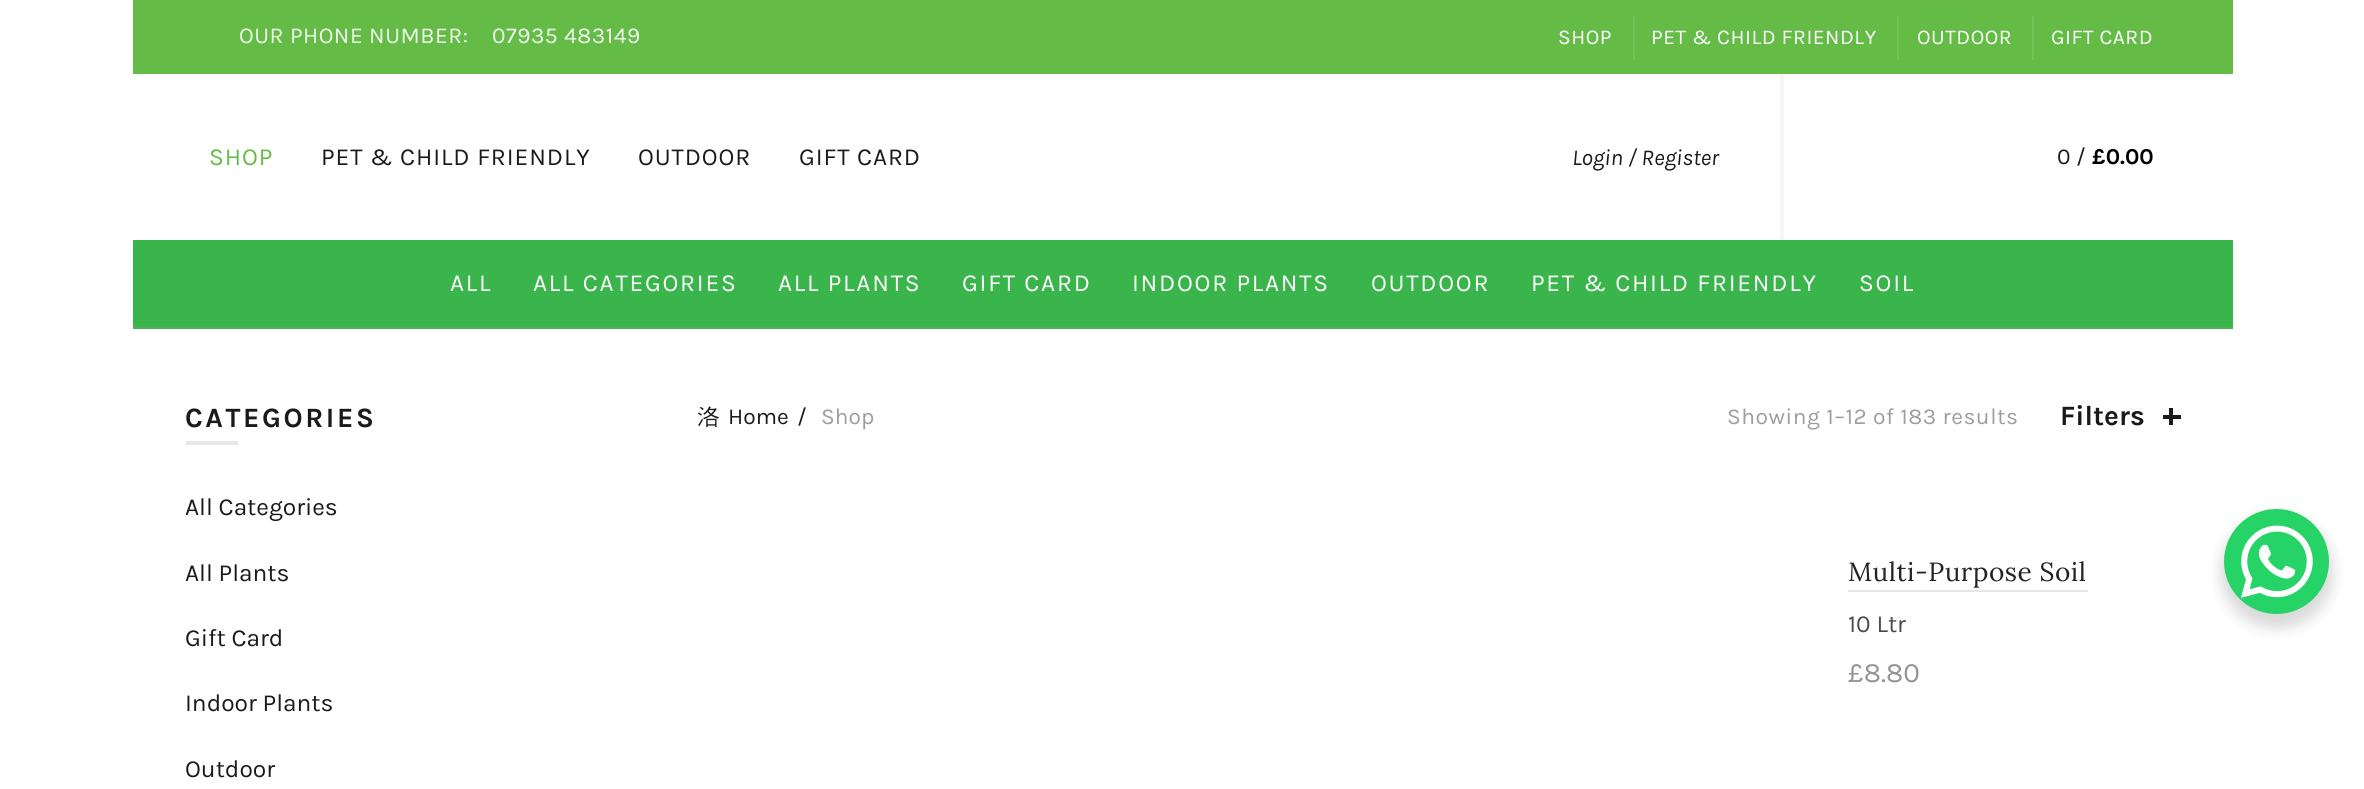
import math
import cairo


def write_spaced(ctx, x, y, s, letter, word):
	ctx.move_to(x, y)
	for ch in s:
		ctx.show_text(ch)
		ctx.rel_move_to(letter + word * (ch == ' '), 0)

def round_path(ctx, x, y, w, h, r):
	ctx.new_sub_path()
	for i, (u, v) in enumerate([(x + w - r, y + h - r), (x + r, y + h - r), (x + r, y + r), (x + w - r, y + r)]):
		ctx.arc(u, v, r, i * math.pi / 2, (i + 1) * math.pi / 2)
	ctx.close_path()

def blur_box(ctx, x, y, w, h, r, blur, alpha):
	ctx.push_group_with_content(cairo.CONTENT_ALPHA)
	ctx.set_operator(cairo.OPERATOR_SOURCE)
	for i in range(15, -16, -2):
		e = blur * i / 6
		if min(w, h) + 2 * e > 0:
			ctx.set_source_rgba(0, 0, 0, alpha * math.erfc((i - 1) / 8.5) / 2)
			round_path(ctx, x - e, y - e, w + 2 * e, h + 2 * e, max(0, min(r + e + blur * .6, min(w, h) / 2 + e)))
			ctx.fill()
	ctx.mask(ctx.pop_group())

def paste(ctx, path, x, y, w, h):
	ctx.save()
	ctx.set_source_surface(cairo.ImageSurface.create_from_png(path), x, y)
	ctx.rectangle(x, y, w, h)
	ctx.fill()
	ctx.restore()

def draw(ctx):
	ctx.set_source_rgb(1, 1, 1)
	ctx.paint()
	ctx.set_source_rgb(0.392, 0.737, 0.275)
	ctx.rectangle(133, 0, 2100, 74)
	ctx.fill()
	ctx.select_font_face('Karla')
	ctx.set_font_size(22.75)
	ctx.set_source_rgb(0.941, 0.973, 0.929)
	write_spaced(ctx, 239, 43, 'OUR PHONE NUMBER:', 0.5, 0)
	write_spaced(ctx, 492, 43, '07935 483149', 0.5, 0)
	ctx.set_font_size(21)
	ctx.set_source_rgb(1, 1, 1)
	write_spaced(ctx, 1558, 44, 'SHOP', 0.5, 0)
	ctx.set_source_rgb(0.455, 0.765, 0.349)
	ctx.rectangle(1633, 16, 2, 44)
	ctx.fill()
	ctx.set_source_rgb(1, 1, 1)
	write_spaced(ctx, 1651, 44, 'PET & CHILD FRIENDLY', 0.5, 0)
	ctx.set_source_rgb(0.455, 0.765, 0.349)
	ctx.rectangle(1897, 16, 2, 44)
	ctx.fill()
	ctx.set_source_rgb(1, 1, 1)
	write_spaced(ctx, 1917, 44, 'OUTDOOR', 0.5, 0)
	ctx.set_source_rgb(0.455, 0.765, 0.349)
	ctx.rectangle(2032, 16, 2, 44)
	ctx.fill()
	ctx.set_source_rgb(1, 1, 1)
	write_spaced(ctx, 2051, 44, 'GIFT CARD', 0.5, 0)
	ctx.set_font_size(24.5)
	ctx.set_source_rgb(0.392, 0.737, 0.275)
	write_spaced(ctx, 209, 165, 'SHOP', 0.9, 0)
	ctx.set_source_rgb(0.102, 0.102, 0.102)
	for x, y, s in [
		(321, 165, 'PET & CHILD FRIENDLY'),
		(638, 165, 'OUTDOOR'),
		(799, 165, 'GIFT CARD'),
	]:
		write_spaced(ctx, x, y, s, 0.9, 0)
	ctx.set_source_rgb(0.961, 0.961, 0.961)
	ctx.rectangle(1780, 74, 4, 166)
	ctx.fill()
	ctx.select_font_face('Karla', cairo.FONT_SLANT_ITALIC)
	ctx.set_font_size(22.75)
	ctx.set_source_rgb(0.102, 0.102, 0.102)
	ctx.move_to(1572, 165)
	ctx.show_text('Login / Register')
	ctx.select_font_face('Karla')
	ctx.move_to(2057, 164)
	ctx.show_text('0 /')
	ctx.select_font_face('Karla', cairo.FONT_SLANT_NORMAL, cairo.FONT_WEIGHT_BOLD)
	ctx.set_source_rgb(0, 0, 0)
	ctx.move_to(2092, 164)
	ctx.show_text('£0.00')
	ctx.set_source_rgb(0.227, 0.71, 0.294)
	ctx.rectangle(133, 240, 2100, 87)
	ctx.fill()
	ctx.set_source_rgb(0.294, 0.702, 0.349)
	ctx.rectangle(133, 327, 2100, 2)
	ctx.fill()
	ctx.select_font_face('Karla')
	ctx.set_font_size(24.5)
	ctx.set_source_rgb(1, 1, 1)
	for x, y, s in [
		(450, 291, 'ALL'),
		(533, 291, 'ALL CATEGORIES'),
		(778, 291, 'ALL PLANTS'),
		(962, 291, 'GIFT CARD'),
		(1132, 291, 'INDOOR PLANTS'),
		(1371, 291, 'OUTDOOR'),
		(1531, 291, 'PET & CHILD FRIENDLY'),
		(1859, 291, 'SOIL'),
	]:
		write_spaced(ctx, x, y, s, 1.75, 0)
	ctx.select_font_face('Karla', cairo.FONT_SLANT_NORMAL, cairo.FONT_WEIGHT_BOLD)
	ctx.set_font_size(28)
	ctx.set_source_rgb(0.102, 0.102, 0.102)
	write_spaced(ctx, 185, 427, 'CATEGORIES', 2.6, 0)
	ctx.set_source_rgb(0.902, 0.902, 0.902)
	ctx.rectangle(186, 441, 52, 4)
	ctx.fill()
	ctx.select_font_face('Karla')
	ctx.set_font_size(24.5)
	ctx.set_source_rgb(0.102, 0.102, 0.102)
	for x, y, s in [
		(185, 515, 'All Categories'),
		(185, 581, 'All Plants'),
		(185, 646, 'Gift Card'),
		(185, 711, 'Indoor Plants'),
		(185, 777, 'Outdoor'),
	]:
		ctx.move_to(x, y)
		ctx.show_text(s)
	ctx.select_font_face('WenQuanYi Zen Hei Medium')
	ctx.set_font_size(22.75)
	ctx.move_to(697, 424)
	ctx.show_text('洛')
	ctx.select_font_face('Karla')
	ctx.move_to(728, 424)
	ctx.show_text('Home')
	ctx.move_to(797, 424)
	ctx.show_text('/')
	ctx.set_source_rgb(0.62, 0.62, 0.62)
	ctx.move_to(821, 424)
	ctx.show_text('Shop')
	write_spaced(ctx, 1727, 424, 'Showing 1–12 of 183 results', 0.5, 0)
	ctx.select_font_face('Karla', cairo.FONT_SLANT_NORMAL, cairo.FONT_WEIGHT_BOLD)
	ctx.set_font_size(28)
	ctx.set_source_rgb(0.102, 0.102, 0.102)
	ctx.move_to(2060, 425)
	ctx.show_text('Filters')
	ctx.set_source_rgb(0.106, 0.098, 0.098)
	ctx.rectangle(2169, 408, 4, 17)
	ctx.fill()
	ctx.rectangle(2163, 415, 18, 4)
	ctx.fill()
	ctx.select_font_face('Lora')
	ctx.set_font_size(26.25)
	ctx.set_source_rgb(0.145, 0.133, 0.133)
	write_spaced(ctx, 1848, 581, 'Multi-Purpose Soil', 0.5, 0)
	ctx.set_source_rgb(0.902, 0.902, 0.902)
	ctx.rectangle(1848, 590, 240, 2)
	ctx.fill()
	ctx.select_font_face('Karla')
	ctx.set_font_size(24.5)
	ctx.set_source_rgb(0.298, 0.298, 0.298)
	ctx.move_to(1848, 632)
	ctx.show_text('10 Ltr')
	ctx.set_font_size(28)
	ctx.set_source_rgb(0.58, 0.58, 0.58)
	ctx.move_to(1848, 682)
	ctx.show_text('£8.80')
	ctx.set_source_rgb(0, 0, 0)
	blur_box(ctx, 2221, 516, 112, 112, 56, 7, 0.15)
	ctx.set_source_rgb(0.145, 0.827, 0.4)
	ctx.arc(2276.5, 561.5, 52.5, 0, 2 * math.pi)
	ctx.fill()
	paste(ctx, 'media/1.png', 2241, 525, 72, 73)


surface = cairo.ImageSurface(cairo.FORMAT_RGB24, 2364, 789)
ctx = cairo.Context(surface)
options = cairo.FontOptions()
options.set_hint_metrics(cairo.HINT_METRICS_OFF)
options.set_hint_style(cairo.HINT_STYLE_NONE)
ctx.set_font_options(options)
ctx.set_miter_limit(4)
draw(ctx)
surface.write_to_png('image.png')
